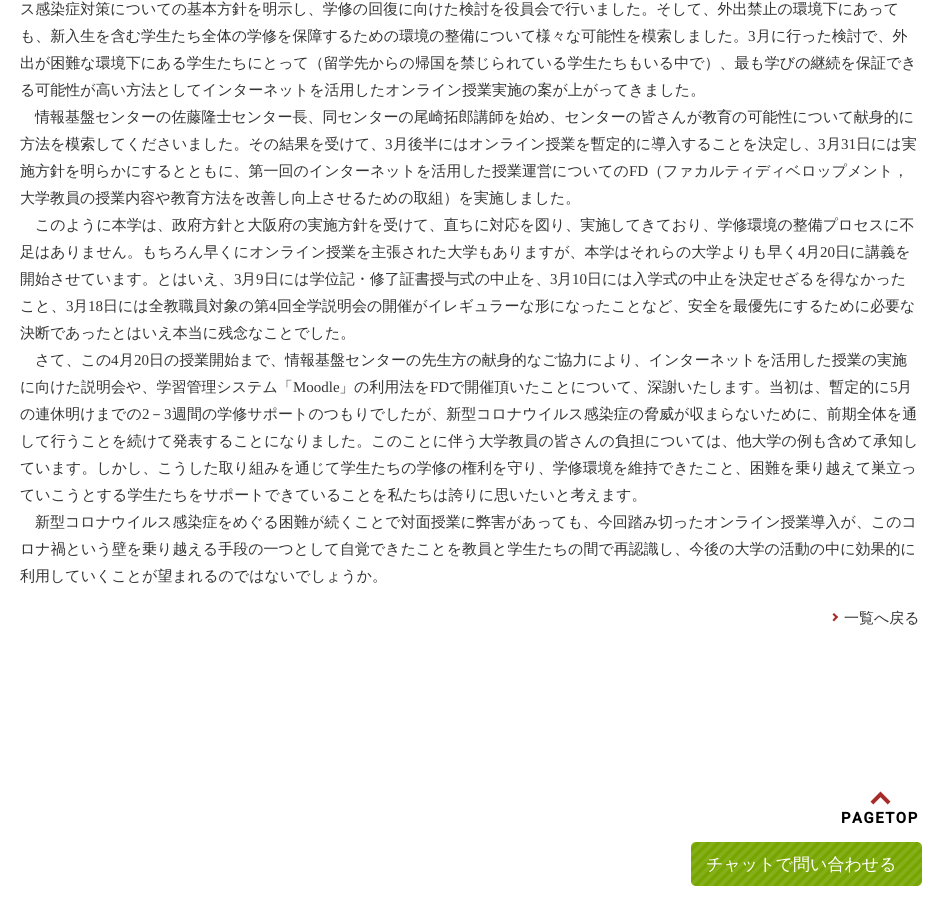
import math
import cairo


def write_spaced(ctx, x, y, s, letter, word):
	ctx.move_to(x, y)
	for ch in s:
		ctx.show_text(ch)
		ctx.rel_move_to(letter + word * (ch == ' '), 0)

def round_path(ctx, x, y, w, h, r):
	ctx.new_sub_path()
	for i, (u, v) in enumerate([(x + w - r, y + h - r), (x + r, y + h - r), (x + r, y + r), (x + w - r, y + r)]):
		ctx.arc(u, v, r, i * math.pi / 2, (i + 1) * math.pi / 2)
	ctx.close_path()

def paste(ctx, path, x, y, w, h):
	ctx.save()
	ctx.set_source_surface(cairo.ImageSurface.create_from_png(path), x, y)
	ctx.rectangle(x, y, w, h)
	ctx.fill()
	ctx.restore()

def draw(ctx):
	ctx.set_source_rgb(1, 1, 1)
	ctx.paint()
	ctx.select_font_face('WenQuanYi Zen Hei Medium')
	ctx.set_font_size(15)
	ctx.set_source_rgb(0.2, 0.2, 0.2)
	ctx.move_to(20, 14)
	ctx.show_text('ス感染症対策についての基本方針を明示し、学修の回復に向けた検討を役員会で行いました。そして、外出禁止の環境下にあって')
	ctx.move_to(20, 41)
	ctx.show_text('も、新入生を含む学生たち全体の学修を保障するための環境の整備について様々な可能性を模索しました。')
	ctx.select_font_face('Liberation Serif')
	ctx.move_to(748, 41)
	ctx.show_text('3')
	ctx.select_font_face('WenQuanYi Zen Hei Medium')
	for x, y, s in [
		(756, 41, '月に行った検討で、外'),
		(20, 68, '出が困難な環境下にある学生たちにとって（留学先からの帰国を禁じられている学生たちもいる中で）、最も学びの継続を保証でき'),
		(20, 95, 'る可能性が高い方法としてインターネットを活用したオンライン授業実施の案が上がってきました。'),
		(35, 122, '情報基盤センターの佐藤隆士センター長、同センターの尾崎拓郎講師を始め、センターの皆さんが教育の可能性について献身的に'),
		(20, 149, '方法を模索してくださいました。その結果を受けて、'),
	]:
		ctx.move_to(x, y)
		ctx.show_text(s)
	ctx.select_font_face('Liberation Serif')
	ctx.move_to(385, 149)
	ctx.show_text('3')
	ctx.select_font_face('WenQuanYi Zen Hei Medium')
	ctx.move_to(393, 149)
	ctx.show_text('月後半にはオンライン授業を暫定的に導入することを決定し、')
	ctx.select_font_face('Liberation Serif')
	ctx.move_to(818, 149)
	ctx.show_text('3')
	ctx.select_font_face('WenQuanYi Zen Hei Medium')
	ctx.move_to(826, 149)
	ctx.show_text('月')
	ctx.select_font_face('Liberation Serif')
	ctx.move_to(841, 149)
	ctx.show_text('31')
	ctx.select_font_face('WenQuanYi Zen Hei Medium')
	ctx.move_to(856, 149)
	ctx.show_text('日には実')
	ctx.move_to(20, 176)
	ctx.show_text('施方針を明らかにするとともに、第一回のインターネットを活用した授業運営についての')
	ctx.select_font_face('Liberation Serif')
	ctx.move_to(629, 176)
	ctx.show_text('FD')
	ctx.select_font_face('WenQuanYi Zen Hei Medium')
	for x, y, s in [
		(648, 176, '（ファカルティディベロップメント，'),
		(20, 203, '大学教員の授業内容や教育方法を改善し向上させるための取組）を実施しました。'),
		(35, 230, 'このように本学は、政府方針と大阪府の実施方針を受けて、直ちに対応を図り、実施してきており、学修環境の整備プロセスに不'),
		(20, 257, '足はありません。もちろん早くにオンライン授業を主張された大学もありますが、本学はそれらの大学よりも早く'),
	]:
		ctx.move_to(x, y)
		ctx.show_text(s)
	ctx.select_font_face('Liberation Serif')
	ctx.move_to(798, 257)
	ctx.show_text('4')
	ctx.select_font_face('WenQuanYi Zen Hei Medium')
	ctx.move_to(805, 257)
	ctx.show_text('月')
	ctx.select_font_face('Liberation Serif')
	ctx.move_to(820, 257)
	ctx.show_text('20')
	ctx.select_font_face('WenQuanYi Zen Hei Medium')
	ctx.move_to(835, 257)
	ctx.show_text('日に講義を')
	ctx.move_to(20, 284)
	ctx.show_text('開始させています。とはいえ、')
	ctx.select_font_face('Liberation Serif')
	ctx.move_to(234, 284)
	ctx.show_text('3')
	ctx.select_font_face('WenQuanYi Zen Hei Medium')
	ctx.move_to(241, 284)
	ctx.show_text('月')
	ctx.select_font_face('Liberation Serif')
	ctx.move_to(256, 284)
	ctx.show_text('9')
	ctx.select_font_face('WenQuanYi Zen Hei Medium')
	ctx.move_to(264, 284)
	ctx.show_text('日には学位記・修了証書授与式の中止を、')
	ctx.select_font_face('Liberation Serif')
	ctx.move_to(550, 284)
	ctx.show_text('3')
	ctx.select_font_face('WenQuanYi Zen Hei Medium')
	ctx.move_to(557, 284)
	ctx.show_text('月')
	ctx.select_font_face('Liberation Serif')
	ctx.move_to(572, 284)
	ctx.show_text('10')
	ctx.select_font_face('WenQuanYi Zen Hei Medium')
	ctx.move_to(587, 284)
	ctx.show_text('日には入学式の中止を決定せざるを得なかった')
	ctx.move_to(20, 311)
	ctx.show_text('こと、')
	ctx.select_font_face('Liberation Serif')
	ctx.move_to(66, 311)
	ctx.show_text('3')
	ctx.select_font_face('WenQuanYi Zen Hei Medium')
	ctx.move_to(73, 311)
	ctx.show_text('月')
	ctx.select_font_face('Liberation Serif')
	ctx.move_to(88, 311)
	ctx.show_text('18')
	ctx.select_font_face('WenQuanYi Zen Hei Medium')
	ctx.move_to(103, 311)
	ctx.show_text('日には全教職員対象の第')
	ctx.select_font_face('Liberation Serif')
	ctx.move_to(269, 311)
	ctx.show_text('4')
	ctx.select_font_face('WenQuanYi Zen Hei Medium')
	for x, y, s in [
		(277, 311, '回全学説明会の開催がイレギュラーな形になったことなど、安全を最優先にするために必要な'),
		(20, 338, '決断であったとはいえ本当に残念なことでした。'),
		(35, 365, 'さて、この'),
	]:
		ctx.move_to(x, y)
		ctx.show_text(s)
	ctx.select_font_face('Liberation Serif')
	ctx.move_to(111, 365)
	ctx.show_text('4')
	ctx.select_font_face('WenQuanYi Zen Hei Medium')
	ctx.move_to(119, 365)
	ctx.show_text('月')
	ctx.select_font_face('Liberation Serif')
	ctx.move_to(134, 365)
	ctx.show_text('20')
	ctx.select_font_face('WenQuanYi Zen Hei Medium')
	ctx.move_to(149, 365)
	ctx.show_text('日の授業開始まで、情報基盤センターの先生方の献身的なご協力により、インターネットを活用した授業の実施')
	ctx.move_to(20, 392)
	ctx.show_text('に向けた説明会や、学習管理システム「')
	ctx.select_font_face('Liberation Serif')
	ctx.move_to(293, 392)
	ctx.show_text('Moodle')
	ctx.select_font_face('WenQuanYi Zen Hei Medium')
	ctx.move_to(339, 392)
	ctx.show_text('」の利用法を')
	ctx.select_font_face('Liberation Serif')
	ctx.move_to(430, 392)
	ctx.show_text('FD')
	ctx.select_font_face('WenQuanYi Zen Hei Medium')
	ctx.move_to(449, 392)
	ctx.show_text('で開催頂いたことについて、深謝いたします。当初は、暫定的に')
	ctx.select_font_face('Liberation Serif')
	ctx.move_to(890, 392)
	ctx.show_text('5')
	ctx.select_font_face('WenQuanYi Zen Hei Medium')
	ctx.move_to(897, 392)
	ctx.show_text('月')
	ctx.move_to(20, 419)
	ctx.show_text('の連休明けまでの')
	ctx.select_font_face('Liberation Serif')
	ctx.move_to(142, 419)
	ctx.show_text('2')
	ctx.select_font_face('WenQuanYi Zen Hei Medium')
	ctx.move_to(149, 419)
	ctx.show_text('－')
	ctx.select_font_face('Liberation Serif')
	ctx.move_to(164, 419)
	ctx.show_text('3')
	ctx.select_font_face('WenQuanYi Zen Hei Medium')
	for x, y, s in [
		(172, 419, '週間の学修サポートのつもりでしたが、新型コロナウイルス感染症の脅威が収まらないために、前期全体を通'),
		(20, 446, 'して行うことを続けて発表することになりました。このことに伴う大学教員の皆さんの負担については、他大学の例も含めて承知し'),
		(20, 473, 'ています。しかし、こうした取り組みを通じて学生たちの学修の権利を守り、学修環境を維持できたこと、困難を乗り越えて巣立っ'),
		(20, 500, 'ていこうとする学生たちをサポートできていることを私たちは誇りに思いたいと考えます。'),
		(35, 527, '新型コロナウイルス感染症をめぐる困難が続くことで対面授業に弊害があっても、今回踏み切ったオンライン授業導入が、このコ'),
		(20, 554, 'ロナ禍という壁を乗り越える手段の一つとして自覚できたことを教員と学生たちの間で再認識し、今後の大学の活動の中に効果的に'),
		(20, 581, '利用していくことが望まれるのではないでしょうか。'),
	]:
		ctx.move_to(x, y)
		ctx.show_text(s)
	ctx.set_source_rgb(0.655, 0.173, 0.161)
	ctx.new_path()
	ctx.move_to(832.5, 614.5)
	ctx.line_to(834, 613)
	ctx.line_to(838, 617)
	ctx.line_to(836.5, 618.5)
	ctx.close_path()
	ctx.fill()
	ctx.new_path()
	ctx.move_to(832.5, 620)
	ctx.line_to(836.5, 615.5)
	ctx.line_to(838, 617)
	ctx.line_to(834, 621.5)
	ctx.close_path()
	ctx.fill()
	ctx.set_source_rgb(0.2, 0.2, 0.2)
	ctx.move_to(844, 623)
	ctx.show_text('一覧へ戻る')
	paste(ctx, 'media/1.png', 870, 791, 21, 14)
	ctx.select_font_face('Roboto', cairo.FONT_SLANT_NORMAL, cairo.FONT_WEIGHT_BOLD)
	ctx.set_source_rgb(0, 0, 0)
	write_spaced(ctx, 841, 823, 'PAGETOP', 1.5, 0)
	ctx.set_source_rgb(0.467, 0.651, 0)
	round_path(ctx, 691, 842, 231, 44, 5)
	ctx.fill()
	paste(ctx, 'media/2.png', 691, 842, 231, 44)
	ctx.select_font_face('WenQuanYi Zen Hei Medium')
	ctx.set_font_size(17)
	ctx.set_source_rgb(1, 1, 1)
	ctx.move_to(706, 870)
	ctx.show_text('チャットで問い合わせる')


surface = cairo.ImageSurface(cairo.FORMAT_RGB24, 942, 906)
ctx = cairo.Context(surface)
options = cairo.FontOptions()
options.set_hint_metrics(cairo.HINT_METRICS_OFF)
options.set_hint_style(cairo.HINT_STYLE_NONE)
ctx.set_font_options(options)
ctx.set_miter_limit(4)
draw(ctx)
surface.write_to_png('image.png')
